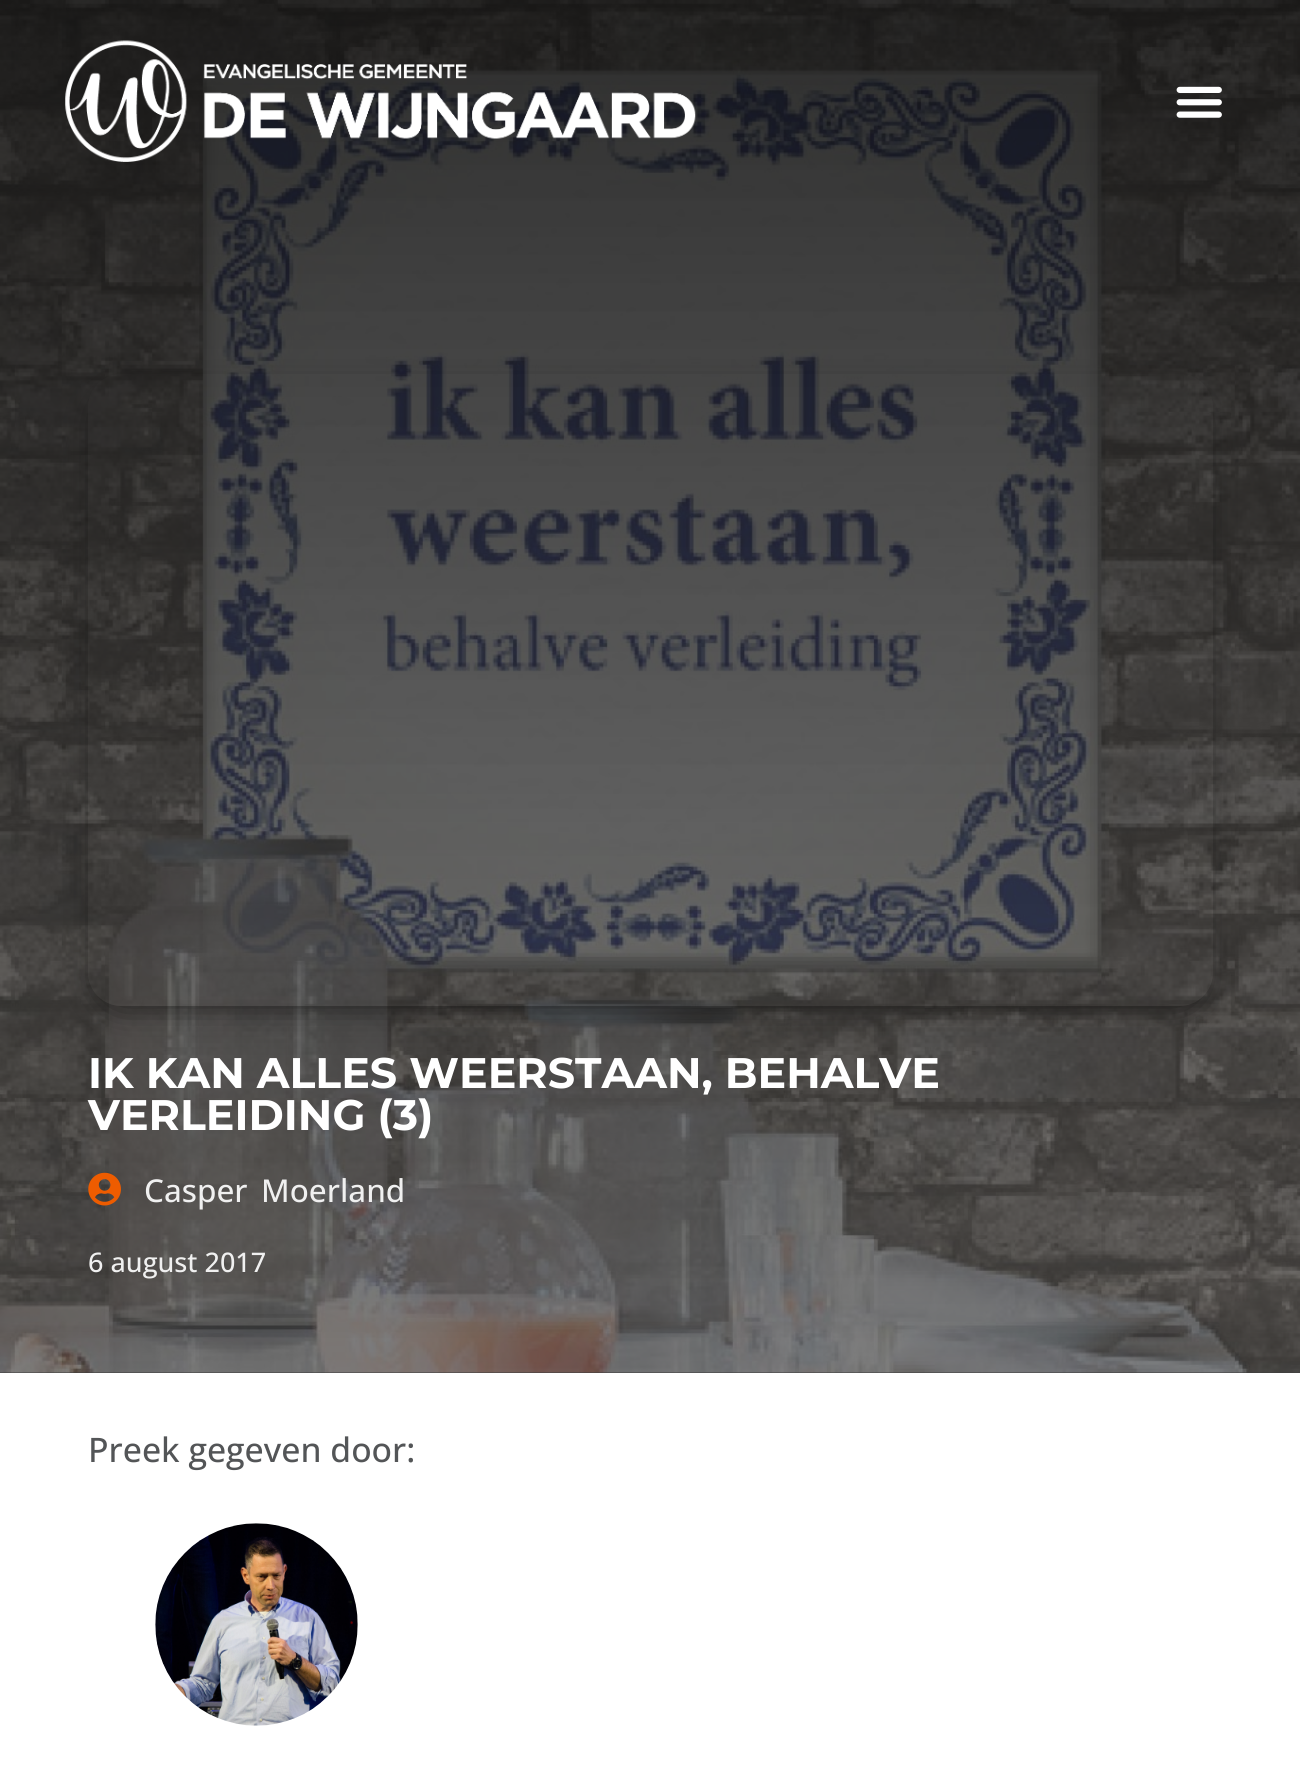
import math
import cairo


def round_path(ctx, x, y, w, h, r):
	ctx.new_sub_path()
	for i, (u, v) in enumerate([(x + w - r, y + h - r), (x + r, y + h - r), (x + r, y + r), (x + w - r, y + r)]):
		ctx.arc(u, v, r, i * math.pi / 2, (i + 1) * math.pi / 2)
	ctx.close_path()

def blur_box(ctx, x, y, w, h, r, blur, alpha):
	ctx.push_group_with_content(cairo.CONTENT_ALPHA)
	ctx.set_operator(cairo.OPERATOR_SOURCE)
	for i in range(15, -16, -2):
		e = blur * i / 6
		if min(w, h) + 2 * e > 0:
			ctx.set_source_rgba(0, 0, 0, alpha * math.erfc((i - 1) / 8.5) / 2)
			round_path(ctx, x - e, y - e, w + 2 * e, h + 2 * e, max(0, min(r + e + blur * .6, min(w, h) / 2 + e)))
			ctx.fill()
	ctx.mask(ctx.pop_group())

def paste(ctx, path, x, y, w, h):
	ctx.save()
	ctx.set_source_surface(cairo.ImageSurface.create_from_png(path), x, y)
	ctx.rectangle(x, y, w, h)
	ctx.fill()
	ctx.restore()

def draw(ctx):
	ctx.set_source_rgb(1, 1, 1)
	ctx.paint()
	ctx.set_source_rgb(0.145, 0.145, 0.145)
	ctx.rectangle(0, 1372, 1300, 1)
	ctx.fill()
	paste(ctx, 'media/3.png', 0, 0, 1300, 1373)
	gradient = cairo.LinearGradient(650, 0, 650, 1373)
	gradient.add_color_stop_rgba(0, 0.086, 0.086, 0.086, 0.9)
	gradient.add_color_stop_rgba(1, 0.282, 0.282, 0.282, 0.71)
	ctx.set_source(gradient)
	ctx.rectangle(0, 0, 1300, 1373)
	ctx.fill()
	paste(ctx, 'media/1.png', 65, 40, 631, 122)
	paste(ctx, 'media/2.png', 1176, 86, 46, 32)
	ctx.save()
	ctx.set_fill_rule(cairo.FILL_RULE_EVEN_ODD)
	ctx.new_path()
	ctx.move_to(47, 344)
	ctx.line_to(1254, 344)
	ctx.line_to(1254, 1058)
	ctx.line_to(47, 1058)
	ctx.close_path()
	ctx.move_to(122, 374)
	ctx.line_to(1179, 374)
	ctx.curve_to(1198, 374, 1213, 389, 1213, 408)
	ctx.line_to(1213, 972)
	ctx.curve_to(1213, 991, 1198, 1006, 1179, 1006)
	ctx.line_to(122, 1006)
	ctx.curve_to(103, 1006, 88, 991, 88, 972)
	ctx.line_to(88, 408)
	ctx.curve_to(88, 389, 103, 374, 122, 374)
	ctx.close_path()
	ctx.clip()
	ctx.set_source_rgb(0, 0, 0)
	blur_box(ctx, 99, 396, 1103, 610, 23, 17, 0.56)
	ctx.restore()
	ctx.select_font_face('Montserrat', cairo.FONT_SLANT_NORMAL, cairo.FONT_WEIGHT_BOLD)
	ctx.set_font_size(42.75)
	ctx.set_source_rgb(1, 1, 1)
	ctx.move_to(88, 1088)
	ctx.show_text('IK KAN ALLES WEERSTAAN, BEHALVE')
	ctx.move_to(88, 1130)
	ctx.show_text('VERLEIDING (3)')
	paste(ctx, 'media/4.png', 88, 1172, 33, 34)
	ctx.select_font_face('Open Sans Medium')
	ctx.set_font_size(31.5)
	ctx.set_source_rgb(0.941, 0.941, 0.941)
	ctx.move_to(144, 1202)
	ctx.show_text('Casper')
	ctx.move_to(261, 1202)
	ctx.show_text('Moerland')
	ctx.set_font_size(27)
	ctx.move_to(88, 1272)
	ctx.show_text('6 august 2017')
	ctx.set_font_size(33.75)
	ctx.set_source_rgb(0.325, 0.333, 0.341)
	ctx.move_to(88, 1462)
	ctx.show_text('Preek gegeven door:')
	paste(ctx, 'media/5.png', 155, 1523, 203, 203)


surface = cairo.ImageSurface(cairo.FORMAT_RGB24, 1300, 1772)
ctx = cairo.Context(surface)
options = cairo.FontOptions()
options.set_hint_metrics(cairo.HINT_METRICS_OFF)
options.set_hint_style(cairo.HINT_STYLE_NONE)
ctx.set_font_options(options)
ctx.set_miter_limit(4)
draw(ctx)
surface.write_to_png('image.png')
